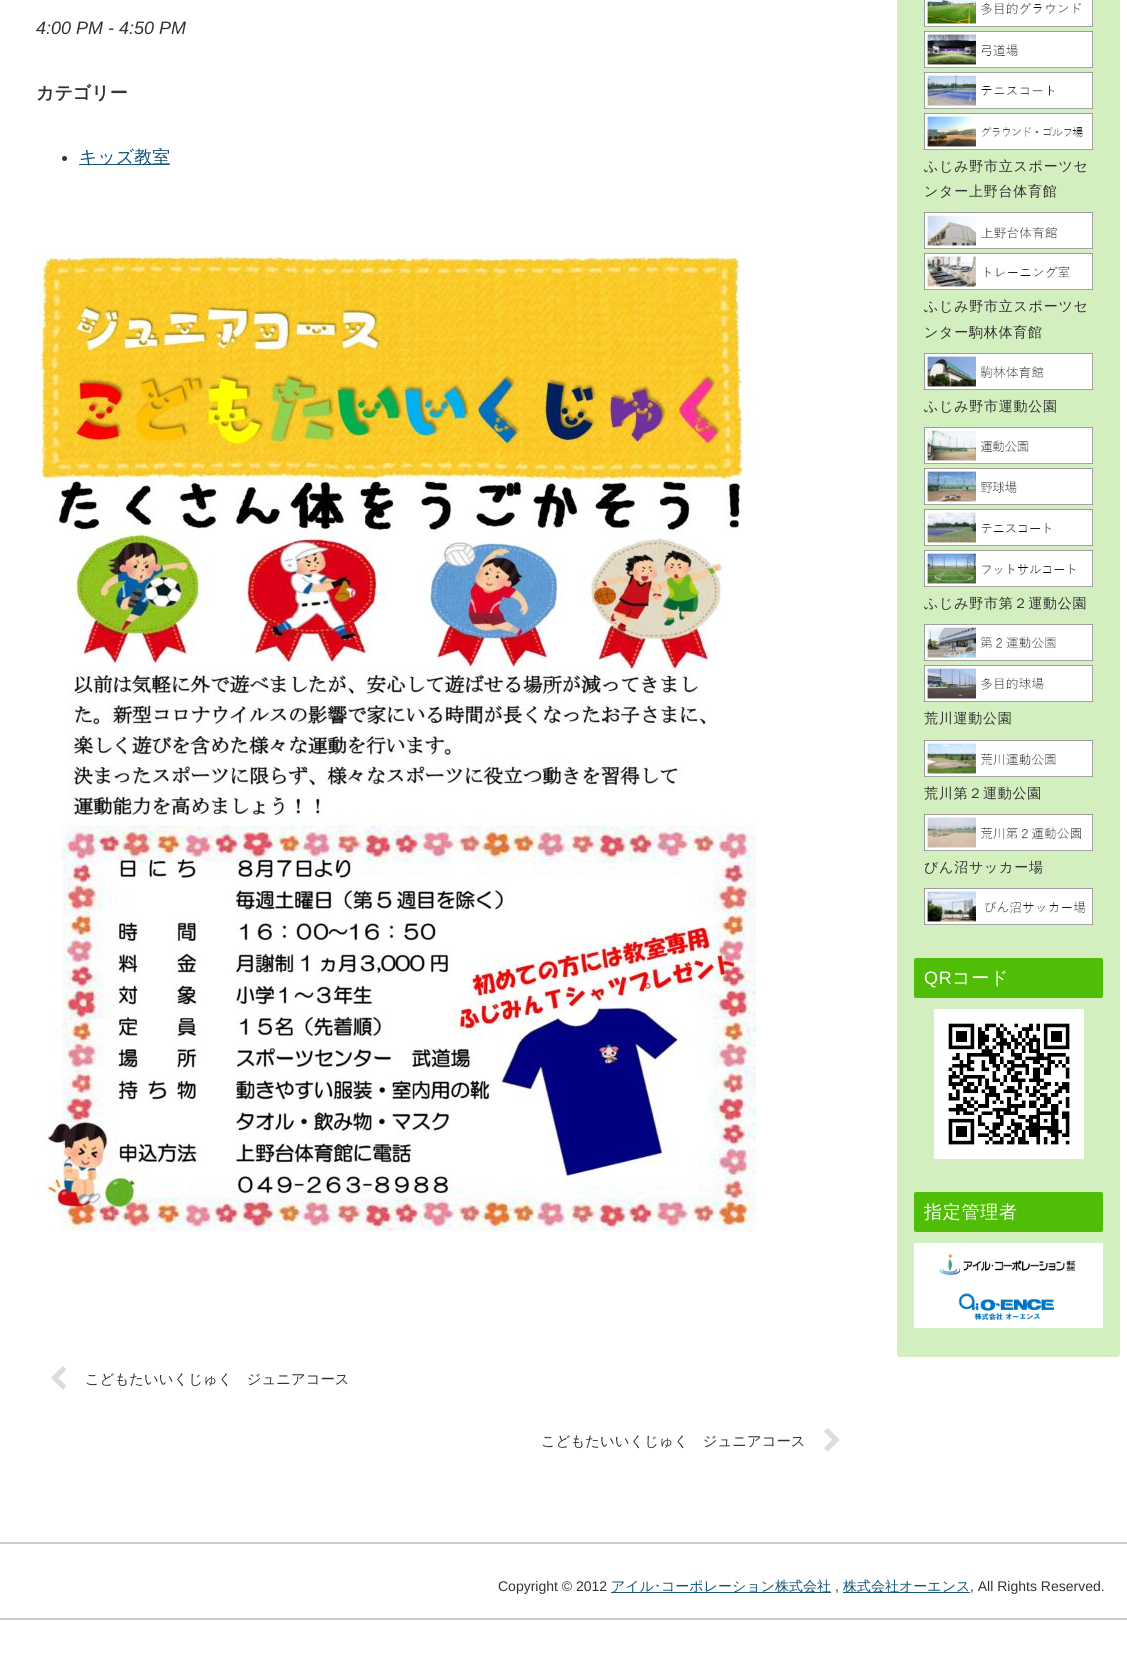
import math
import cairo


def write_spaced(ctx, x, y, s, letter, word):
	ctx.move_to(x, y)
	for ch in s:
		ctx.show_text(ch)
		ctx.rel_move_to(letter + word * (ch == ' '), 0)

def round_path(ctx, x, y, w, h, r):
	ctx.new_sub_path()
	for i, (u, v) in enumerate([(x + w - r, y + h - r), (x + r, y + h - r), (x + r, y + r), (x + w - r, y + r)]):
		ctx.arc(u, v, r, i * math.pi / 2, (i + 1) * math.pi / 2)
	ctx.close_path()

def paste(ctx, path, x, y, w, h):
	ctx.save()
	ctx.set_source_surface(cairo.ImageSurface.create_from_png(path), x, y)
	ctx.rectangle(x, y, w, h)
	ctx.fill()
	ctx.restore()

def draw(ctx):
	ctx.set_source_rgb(1, 1, 1)
	ctx.paint()
	ctx.select_font_face('Liberation Sans', cairo.FONT_SLANT_ITALIC)
	ctx.set_font_size(18)
	ctx.set_source_rgb(0.2, 0.2, 0.2)
	ctx.move_to(36, 34)
	ctx.show_text('4:00 PM - 4:50 PM')
	ctx.select_font_face('WenQuanYi Zen Hei', cairo.FONT_SLANT_NORMAL, cairo.FONT_WEIGHT_BOLD)
	ctx.move_to(36, 99)
	ctx.show_text('カテゴリー')
	ctx.new_path()
	ctx.arc(64.5, 158.5, 2.5, 0, 2 * math.pi)
	ctx.fill()
	ctx.set_source_rgb(0.082, 0.329, 0.467)
	ctx.rectangle(79, 164, 91, 1)
	ctx.fill()
	ctx.select_font_face('WenQuanYi Zen Hei Medium')
	ctx.move_to(79, 163)
	ctx.show_text('キッズ教室')
	paste(ctx, 'media/1.png', 36, 254, 721, 978)
	paste(ctx, 'media/2.png', 51, 1366, 15, 24)
	ctx.set_font_size(14.4)
	ctx.set_source_rgb(0.2, 0.2, 0.2)
	ctx.move_to(85, 1384)
	ctx.show_text('こどもたいいくじゅく　ジュニアコース')
	ctx.move_to(541, 1446)
	ctx.show_text('こどもたいいくじゅく　ジュニアコース')
	paste(ctx, 'media/3.png', 824, 1428, 16, 24)
	ctx.set_source_rgb(0.827, 0.937, 0.753)
	round_path(ctx, 897, -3, 223, 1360, 3)
	ctx.fill()
	paste(ctx, 'media/4.png', 924, 0, 169, 27)
	paste(ctx, 'media/5.png', 924, 31, 169, 37)
	paste(ctx, 'media/6.png', 924, 72, 169, 37)
	paste(ctx, 'media/7.png', 924, 113, 169, 37)
	ctx.set_font_size(14)
	ctx.set_source_rgb(0.2, 0.2, 0.2)
	write_spaced(ctx, 924, 171, 'ふじみ野市立スポーツセ', 0.75, 0)
	write_spaced(ctx, 924, 196, 'ンター上野台体育館', 0.75, 0)
	paste(ctx, 'media/8.png', 924, 212, 169, 37)
	paste(ctx, 'media/9.png', 924, 253, 169, 37)
	write_spaced(ctx, 924, 311, 'ふじみ野市立スポーツセ', 0.75, 0)
	write_spaced(ctx, 924, 337, 'ンター駒林体育館', 0.75, 0)
	paste(ctx, 'media/10.png', 924, 353, 169, 37)
	write_spaced(ctx, 924, 411, 'ふじみ野市運動公園', 0.75, 0)
	paste(ctx, 'media/11.png', 924, 427, 169, 37)
	paste(ctx, 'media/12.png', 924, 468, 169, 37)
	paste(ctx, 'media/13.png', 924, 509, 169, 37)
	paste(ctx, 'media/14.png', 924, 550, 169, 37)
	write_spaced(ctx, 924, 608, 'ふじみ野市第２運動公園', 0.75, 0)
	paste(ctx, 'media/15.png', 924, 624, 169, 37)
	paste(ctx, 'media/16.png', 924, 665, 169, 37)
	write_spaced(ctx, 924, 723, '荒川運動公園', 0.75, 0)
	paste(ctx, 'media/17.png', 924, 740, 169, 37)
	write_spaced(ctx, 924, 798, '荒川第２運動公園', 0.75, 0)
	paste(ctx, 'media/18.png', 924, 814, 169, 37)
	write_spaced(ctx, 924, 872, 'びん沼サッカー場', 0.75, 0)
	paste(ctx, 'media/19.png', 924, 888, 169, 37)
	ctx.set_source_rgb(0.314, 0.745, 0.027)
	round_path(ctx, 914, 958, 189, 40, 2)
	ctx.fill()
	ctx.select_font_face('Liberation Sans')
	ctx.set_font_size(18)
	ctx.set_source_rgb(1, 1, 1)
	write_spaced(ctx, 924, 984, 'QR', 0.75, 0)
	ctx.select_font_face('WenQuanYi Zen Hei Medium')
	write_spaced(ctx, 952, 984, 'コード', 0.75, 0)
	paste(ctx, 'media/20.png', 934, 1009, 150, 150)
	ctx.set_source_rgb(0.314, 0.745, 0.027)
	round_path(ctx, 914, 1192, 189, 40, 2)
	ctx.fill()
	ctx.set_source_rgb(1, 1, 1)
	write_spaced(ctx, 924, 1218, '指定管理者', 0.75, 0)
	paste(ctx, 'media/21.png', 914, 1243, 189, 43)
	paste(ctx, 'media/22.png', 914, 1286, 189, 42)
	ctx.set_source_rgb(0.8, 0.8, 0.8)
	ctx.rectangle(0, 1542, 1127, 2)
	ctx.fill()
	ctx.rectangle(0, 1618, 1127, 2)
	ctx.fill()
	ctx.select_font_face('Liberation Sans')
	ctx.set_font_size(14)
	ctx.set_source_rgb(0.2, 0.2, 0.2)
	ctx.move_to(498, 1591)
	ctx.show_text('Copyright © 2012')
	ctx.set_source_rgb(0.082, 0.329, 0.467)
	ctx.rectangle(611, 1592, 220, 1)
	ctx.fill()
	ctx.select_font_face('WenQuanYi Zen Hei Medium')
	ctx.move_to(611, 1591)
	ctx.show_text('アイル')
	ctx.select_font_face('IPAPGothic')
	ctx.move_to(654, 1591)
	ctx.show_text('･')
	ctx.select_font_face('WenQuanYi Zen Hei Medium')
	ctx.move_to(661, 1591)
	ctx.show_text('コーポレーション株式会社')
	ctx.rectangle(843, 1592, 127, 1)
	ctx.fill()
	ctx.move_to(843, 1591)
	ctx.show_text('株式会社オーエンス')
	ctx.select_font_face('Liberation Sans')
	ctx.set_source_rgb(0.2, 0.2, 0.2)
	ctx.move_to(970, 1591)
	ctx.show_text(', All Rights Reserved.')
	ctx.move_to(835, 1591)
	ctx.show_text(',')


surface = cairo.ImageSurface(cairo.FORMAT_RGB24, 1127, 1665)
ctx = cairo.Context(surface)
options = cairo.FontOptions()
options.set_hint_metrics(cairo.HINT_METRICS_OFF)
options.set_hint_style(cairo.HINT_STYLE_NONE)
ctx.set_font_options(options)
ctx.set_miter_limit(4)
draw(ctx)
surface.write_to_png('image.png')
